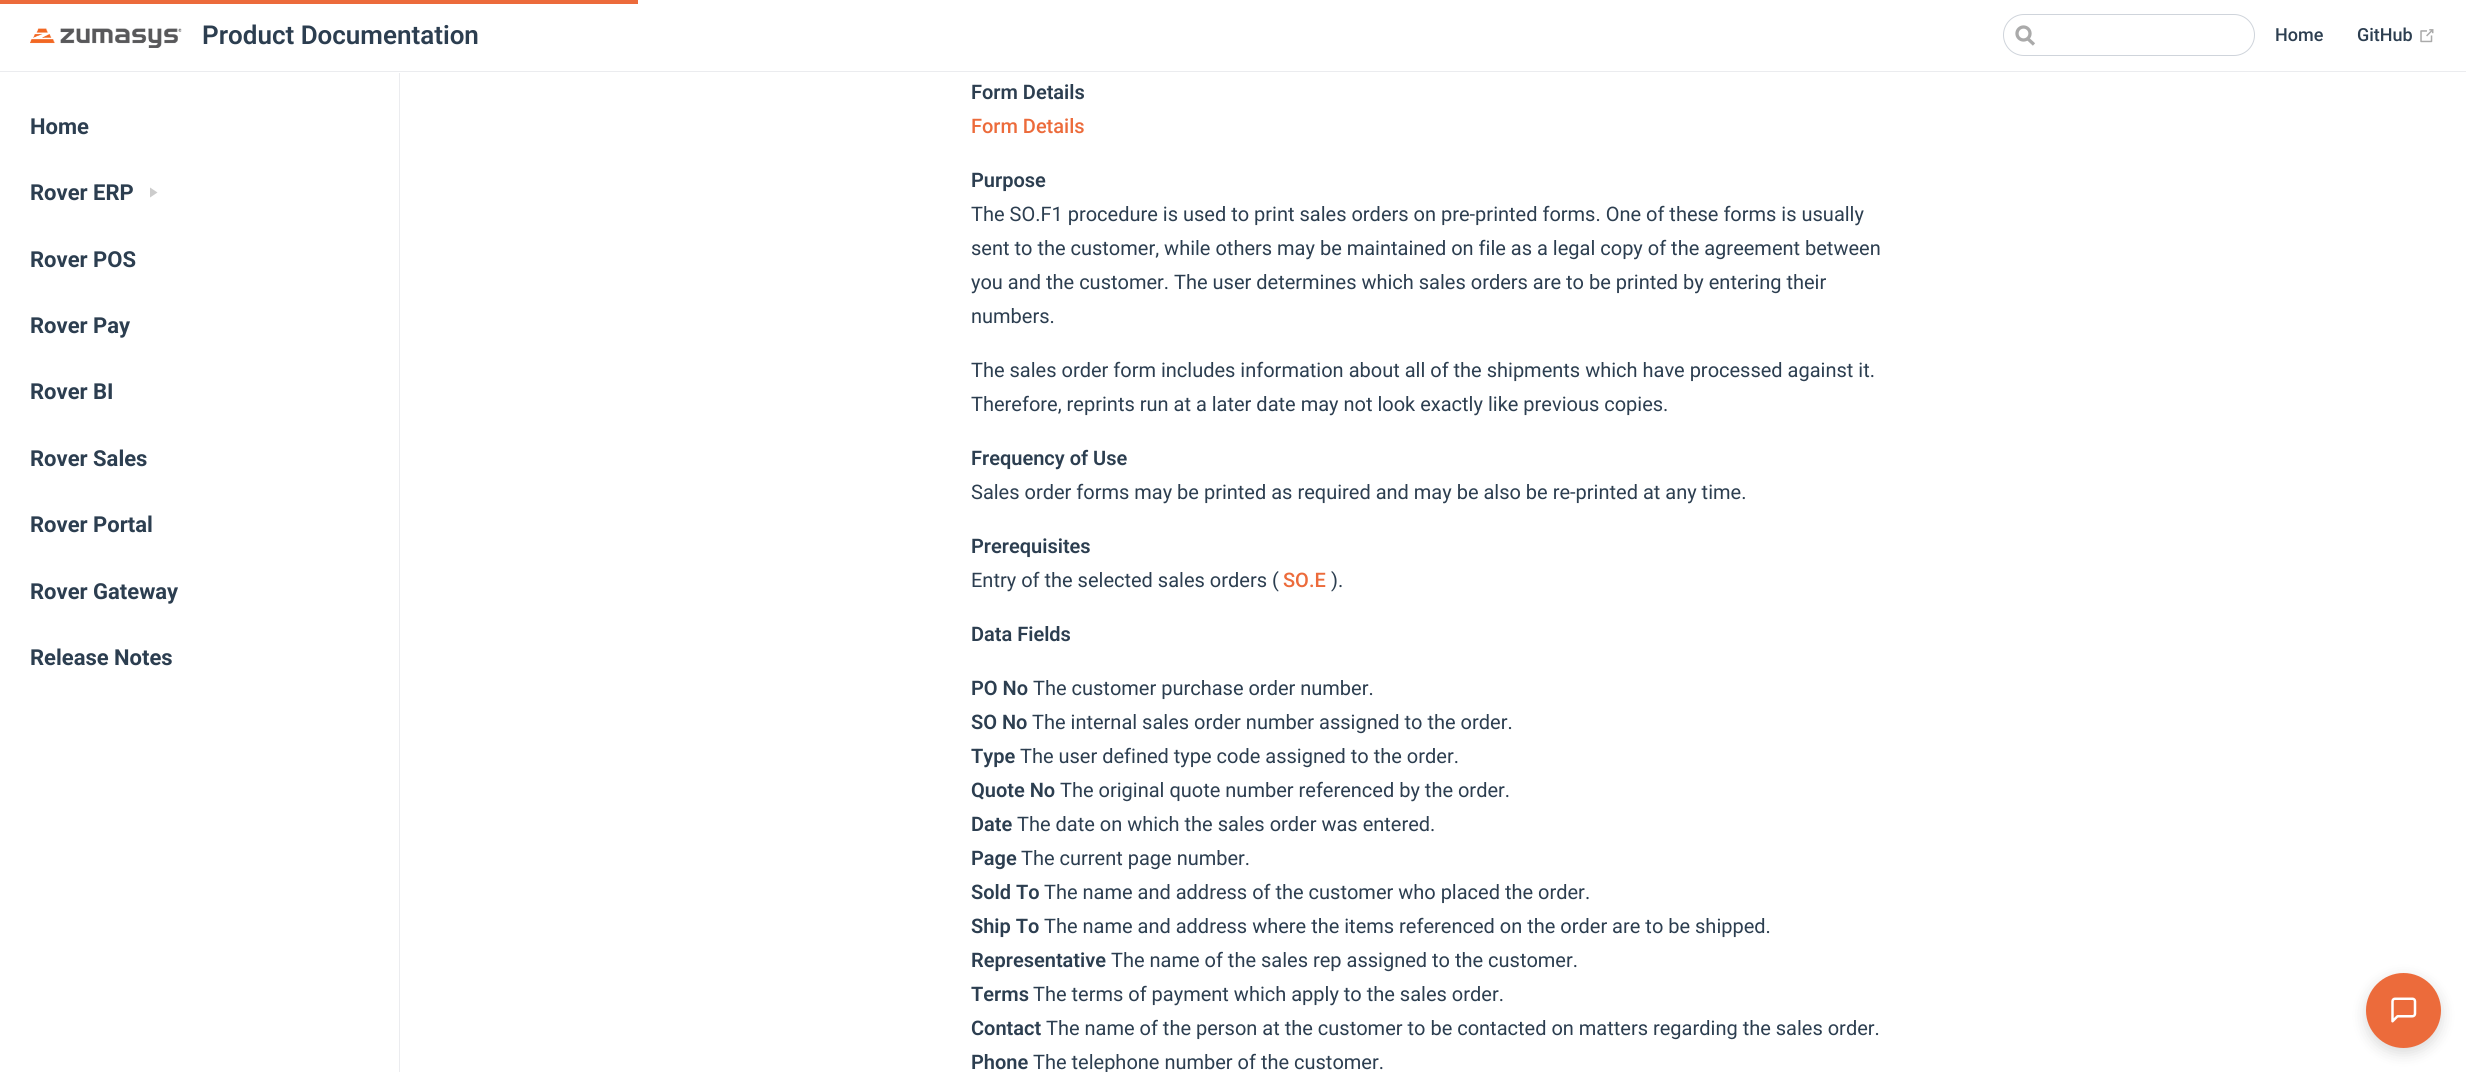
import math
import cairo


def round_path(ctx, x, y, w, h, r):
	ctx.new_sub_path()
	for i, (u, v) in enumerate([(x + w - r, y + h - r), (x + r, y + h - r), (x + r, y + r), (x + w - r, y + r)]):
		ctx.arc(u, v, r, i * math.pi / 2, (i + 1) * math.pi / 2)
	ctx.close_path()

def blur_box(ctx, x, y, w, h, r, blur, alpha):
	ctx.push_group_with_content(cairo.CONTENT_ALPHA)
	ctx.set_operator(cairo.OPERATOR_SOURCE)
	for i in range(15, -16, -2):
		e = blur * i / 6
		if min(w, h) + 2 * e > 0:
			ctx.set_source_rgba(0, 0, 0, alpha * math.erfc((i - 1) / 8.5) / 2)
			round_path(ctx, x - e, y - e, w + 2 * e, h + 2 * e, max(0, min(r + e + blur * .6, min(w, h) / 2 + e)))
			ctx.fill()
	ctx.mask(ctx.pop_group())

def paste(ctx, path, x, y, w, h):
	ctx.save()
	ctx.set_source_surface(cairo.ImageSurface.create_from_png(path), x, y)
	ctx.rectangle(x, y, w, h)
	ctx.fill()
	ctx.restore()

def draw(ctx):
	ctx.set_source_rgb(1, 1, 1)
	ctx.paint()
	ctx.set_source_rgb(0.922, 0.42, 0.231)
	ctx.rectangle(0, 0, 638, 4)
	ctx.fill()
	ctx.set_source_rgb(0.918, 0.925, 0.937)
	ctx.rectangle(0, 71, 2466, 1)
	ctx.fill()
	paste(ctx, 'media/1.png', 30, 28, 152, 20)
	ctx.select_font_face('Roboto SemiBold')
	ctx.set_font_size(26)
	ctx.set_source_rgb(0.173, 0.243, 0.314)
	ctx.move_to(202, 44)
	ctx.show_text('Product Documentation')
	ctx.new_path()
	ctx.move_to(2034, 44.5)
	ctx.line_to(2027, 38)
	ctx.set_source_rgb(0.667, 0.667, 0.667)
	ctx.set_line_width(3.3)
	ctx.stroke()
	ctx.arc(2023.5, 33.5, 6.5, 0, 2 * math.pi)
	ctx.stroke()
	round_path(ctx, 2003.5, 14.5, 251, 41, 20.5)
	ctx.set_source_rgb(0.812, 0.831, 0.859)
	ctx.set_line_width(1)
	ctx.stroke()
	ctx.select_font_face('Roboto Medium')
	ctx.set_font_size(18)
	ctx.set_source_rgb(0.173, 0.243, 0.314)
	ctx.move_to(2275, 41)
	ctx.show_text('Home')
	ctx.move_to(2357, 41)
	ctx.show_text('GitHub')
	paste(ctx, 'media/2.png', 2420, 29, 14, 14)
	ctx.set_source_rgb(0.918, 0.925, 0.937)
	ctx.rectangle(399, 73, 1, 999)
	ctx.fill()
	ctx.select_font_face('Roboto', cairo.FONT_SLANT_NORMAL, cairo.FONT_WEIGHT_BOLD)
	ctx.set_font_size(22)
	ctx.set_source_rgb(0.173, 0.243, 0.314)
	ctx.move_to(30, 134)
	ctx.show_text('Home')
	ctx.move_to(30, 200)
	ctx.show_text('Rover ERP')
	ctx.set_source_rgb(0.8, 0.8, 0.8)
	ctx.new_path()
	ctx.move_to(150, 197.5)
	ctx.line_to(150, 187.5)
	ctx.line_to(157.5, 192.5)
	ctx.close_path()
	ctx.fill()
	ctx.set_source_rgb(0.173, 0.243, 0.314)
	for x, y, s in [
		(30, 267, 'Rover POS'),
		(30, 333, 'Rover Pay'),
		(30, 399, 'Rover BI'),
		(30, 466, 'Rover Sales'),
		(30, 532, 'Rover Portal'),
		(30, 599, 'Rover Gateway'),
		(30, 665, 'Release Notes'),
	]:
		ctx.move_to(x, y)
		ctx.show_text(s)
	ctx.select_font_face('Roboto SemiBold')
	ctx.set_font_size(20)
	ctx.move_to(971, 99)
	ctx.show_text('Form Details')
	ctx.select_font_face('Roboto Medium')
	ctx.set_source_rgb(0.922, 0.42, 0.231)
	ctx.move_to(971, 133)
	ctx.show_text('Form Details')
	ctx.select_font_face('Roboto SemiBold')
	ctx.set_source_rgb(0.173, 0.243, 0.314)
	ctx.move_to(971, 187)
	ctx.show_text('Purpose')
	ctx.select_font_face('Roboto')
	for x, y, s in [
		(971, 221, 'The SO.F1 procedure is used to print sales orders on pre-printed forms. One of these forms is usually'),
		(971, 255, 'sent to the customer, while others may be maintained on file as a legal copy of the agreement between'),
		(971, 289, 'you and the customer. The user determines which sales orders are to be printed by entering their'),
		(971, 323, 'numbers.'),
		(971, 377, 'The sales order form includes information about all of the shipments which have processed against it.'),
		(971, 411, 'Therefore, reprints run at a later date may not look exactly like previous copies.'),
	]:
		ctx.move_to(x, y)
		ctx.show_text(s)
	ctx.select_font_face('Roboto SemiBold')
	ctx.move_to(971, 465)
	ctx.show_text('Frequency of Use')
	ctx.select_font_face('Roboto')
	ctx.move_to(971, 499)
	ctx.show_text('Sales order forms may be printed as required and may be also be re-printed at any time.')
	ctx.select_font_face('Roboto SemiBold')
	ctx.move_to(971, 553)
	ctx.show_text('Prerequisites')
	ctx.select_font_face('Roboto')
	ctx.move_to(971, 587)
	ctx.show_text('Entry of the selected sales orders (')
	ctx.select_font_face('Roboto Medium')
	ctx.set_source_rgb(0.922, 0.42, 0.231)
	ctx.move_to(1283, 587)
	ctx.show_text('SO.E')
	ctx.select_font_face('Roboto')
	ctx.set_source_rgb(0.173, 0.243, 0.314)
	ctx.move_to(1331, 587)
	ctx.show_text(').')
	ctx.select_font_face('Roboto SemiBold')
	ctx.move_to(971, 641)
	ctx.show_text('Data Fields')
	ctx.move_to(971, 695)
	ctx.show_text('PO No')
	ctx.select_font_face('Roboto')
	ctx.move_to(1033, 695)
	ctx.show_text('The customer purchase order number.')
	ctx.select_font_face('Roboto SemiBold')
	ctx.move_to(971, 729)
	ctx.show_text('SO No')
	ctx.select_font_face('Roboto')
	ctx.move_to(1032, 729)
	ctx.show_text('The internal sales order number assigned to the order.')
	ctx.select_font_face('Roboto SemiBold')
	ctx.move_to(971, 763)
	ctx.show_text('Type')
	ctx.select_font_face('Roboto')
	ctx.move_to(1020, 763)
	ctx.show_text('The user defined type code assigned to the order.')
	ctx.select_font_face('Roboto SemiBold')
	ctx.move_to(971, 797)
	ctx.show_text('Quote No')
	ctx.select_font_face('Roboto')
	ctx.move_to(1060, 797)
	ctx.show_text('The original quote number referenced by the order.')
	ctx.select_font_face('Roboto SemiBold')
	ctx.move_to(971, 831)
	ctx.show_text('Date')
	ctx.select_font_face('Roboto')
	ctx.move_to(1017, 831)
	ctx.show_text('The date on which the sales order was entered.')
	ctx.select_font_face('Roboto SemiBold')
	ctx.move_to(971, 865)
	ctx.show_text('Page')
	ctx.select_font_face('Roboto')
	ctx.move_to(1021, 865)
	ctx.show_text('The current page number.')
	ctx.select_font_face('Roboto SemiBold')
	ctx.move_to(971, 899)
	ctx.show_text('Sold To')
	ctx.select_font_face('Roboto')
	ctx.move_to(1044, 899)
	ctx.show_text('The name and address of the customer who placed the order.')
	ctx.select_font_face('Roboto SemiBold')
	ctx.move_to(971, 933)
	ctx.show_text('Ship To')
	ctx.select_font_face('Roboto')
	ctx.move_to(1044, 933)
	ctx.show_text('The name and address where the items referenced on the order are to be shipped.')
	ctx.select_font_face('Roboto SemiBold')
	ctx.move_to(971, 967)
	ctx.show_text('Representative')
	ctx.select_font_face('Roboto')
	ctx.move_to(1111, 967)
	ctx.show_text('The name of the sales rep assigned to the customer.')
	ctx.select_font_face('Roboto SemiBold')
	ctx.move_to(971, 1001)
	ctx.show_text('Terms')
	ctx.select_font_face('Roboto')
	ctx.move_to(1033, 1001)
	ctx.show_text('The terms of payment which apply to the sales order.')
	ctx.select_font_face('Roboto SemiBold')
	ctx.move_to(971, 1035)
	ctx.show_text('Contact')
	ctx.select_font_face('Roboto')
	ctx.move_to(1046, 1035)
	ctx.show_text('The name of the person at the customer to be contacted on matters regarding the sales order.')
	ctx.select_font_face('Roboto SemiBold')
	ctx.move_to(971, 1069)
	ctx.show_text('Phone')
	ctx.select_font_face('Roboto')
	ctx.move_to(1033, 1069)
	ctx.show_text('The telephone number of the customer.')
	ctx.set_source_rgb(0, 0, 0)
	blur_box(ctx, 2366, 978, 75, 75, 37.5, 7.5, 0.15)
	ctx.set_source_rgb(0.922, 0.42, 0.231)
	ctx.arc(2403.5, 1010.5, 37.5, 0, 2 * math.pi)
	ctx.fill()
	paste(ctx, 'media/3.png', 2391, 997, 26, 26)


surface = cairo.ImageSurface(cairo.FORMAT_RGB24, 2466, 1072)
ctx = cairo.Context(surface)
options = cairo.FontOptions()
options.set_hint_metrics(cairo.HINT_METRICS_OFF)
options.set_hint_style(cairo.HINT_STYLE_NONE)
ctx.set_font_options(options)
ctx.set_miter_limit(4)
draw(ctx)
surface.write_to_png('image.png')
